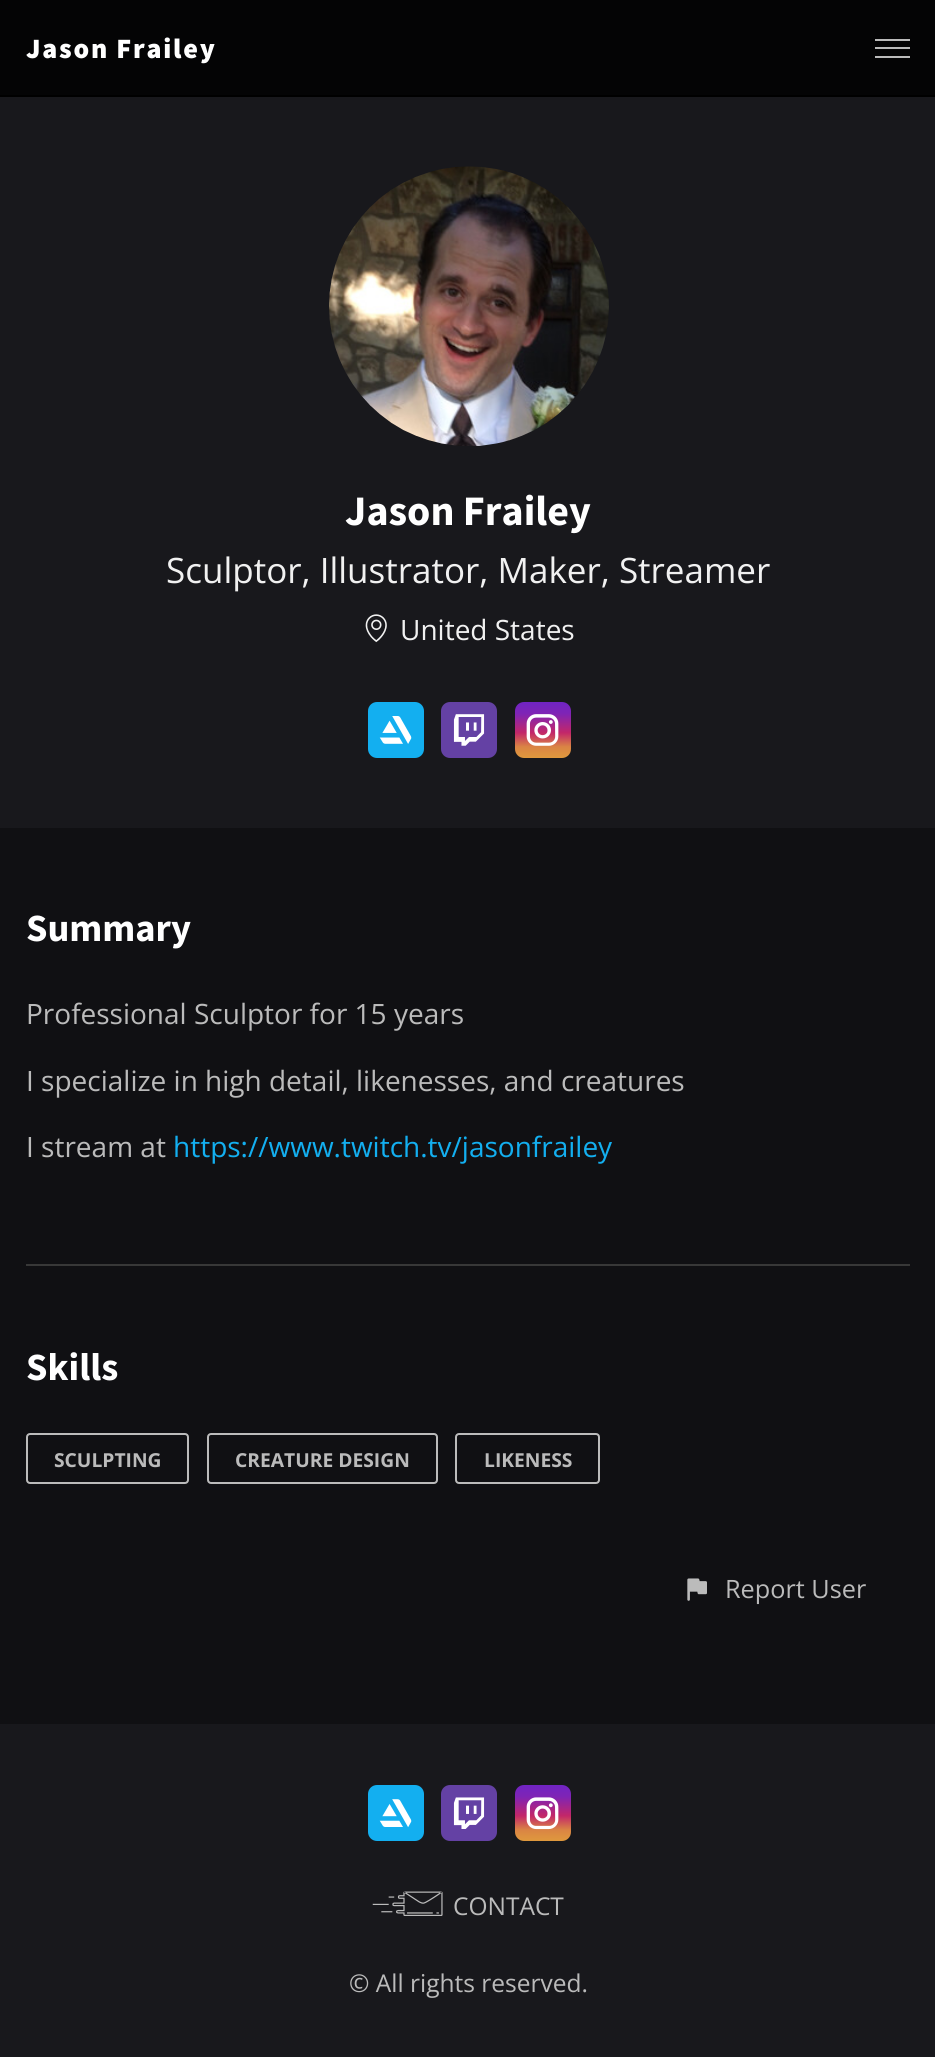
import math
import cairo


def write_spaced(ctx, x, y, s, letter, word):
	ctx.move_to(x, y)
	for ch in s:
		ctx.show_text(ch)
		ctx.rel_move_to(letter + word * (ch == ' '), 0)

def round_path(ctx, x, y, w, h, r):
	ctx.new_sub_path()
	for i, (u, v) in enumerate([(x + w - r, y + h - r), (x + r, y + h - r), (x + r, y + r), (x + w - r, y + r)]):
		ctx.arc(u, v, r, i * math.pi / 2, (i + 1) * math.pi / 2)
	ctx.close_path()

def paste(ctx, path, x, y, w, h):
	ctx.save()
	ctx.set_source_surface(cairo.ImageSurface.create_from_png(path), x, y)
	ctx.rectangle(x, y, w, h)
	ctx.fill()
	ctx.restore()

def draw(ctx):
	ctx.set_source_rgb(0.063, 0.063, 0.078)
	ctx.paint()
	ctx.set_source_rgb(0.016, 0.016, 0.02)
	ctx.rectangle(0, 0, 935, 95)
	ctx.fill()
	ctx.set_source_rgb(0, 0, 0)
	ctx.rectangle(0, 95, 935, 2)
	ctx.fill()
	ctx.select_font_face('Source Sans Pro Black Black')
	ctx.set_font_size(28)
	ctx.set_source_rgb(1, 1, 1)
	write_spaced(ctx, 26, 58, 'Jason Frailey', 1.75, 0)
	ctx.set_source_rgb(0.733, 0.733, 0.733)
	ctx.rectangle(875, 39, 35, 2)
	ctx.rectangle(875, 47, 35, 2)
	ctx.rectangle(875, 56, 35, 2)
	ctx.fill()
	ctx.set_source_rgb(0.094, 0.094, 0.11)
	ctx.rectangle(0, 97, 935, 731)
	ctx.fill()
	paste(ctx, 'media/1.png', 329, 166, 280, 280)
	ctx.select_font_face('Source Sans Pro', cairo.FONT_SLANT_NORMAL, cairo.FONT_WEIGHT_BOLD)
	ctx.set_font_size(42)
	ctx.set_source_rgb(1, 1, 1)
	ctx.move_to(345, 525)
	ctx.show_text('Jason Frailey')
	ctx.select_font_face('Open Sans')
	ctx.set_font_size(35)
	ctx.set_source_rgb(0.945, 0.945, 0.945)
	ctx.move_to(166, 583)
	ctx.show_text('Sculptor, Illustrator, Maker, Streamer')
	paste(ctx, 'media/2.png', 365, 614, 22, 29)
	ctx.set_font_size(28)
	ctx.move_to(400, 640)
	ctx.show_text('United States')
	ctx.set_source_rgb(0.075, 0.686, 0.941)
	round_path(ctx, 368, 702, 56, 56, 9)
	ctx.fill()
	paste(ctx, 'media/3.png', 379, 716, 33, 28)
	ctx.set_source_rgb(0.392, 0.255, 0.643)
	round_path(ctx, 441, 702, 56, 56, 9)
	ctx.fill()
	paste(ctx, 'media/4.png', 453, 714, 32, 32)
	gradient = cairo.LinearGradient(543, 758, 543, 702)
	gradient.add_color_stop_rgba(0, 0.875, 0.6, 0.239, 1)
	gradient.add_color_stop_rgba(0.2, 0.855, 0.518, 0.267, 1)
	gradient.add_color_stop_rgba(0.45, 0.765, 0.153, 0.412, 1)
	gradient.add_color_stop_rgba(0.79, 0.498, 0.141, 0.71, 1)
	gradient.add_color_stop_rgba(1, 0.439, 0.141, 0.769, 1)
	ctx.set_source(gradient)
	round_path(ctx, 515, 702, 56, 56, 9)
	ctx.fill()
	paste(ctx, 'media/5.png', 526, 714, 33, 32)
	ctx.set_source_rgb(0.22, 0.22, 0.22)
	ctx.rectangle(26, 1264, 884, 2)
	ctx.fill()
	ctx.select_font_face('Source Sans Pro', cairo.FONT_SLANT_NORMAL, cairo.FONT_WEIGHT_BOLD)
	ctx.set_font_size(38.5)
	ctx.set_source_rgb(1, 1, 1)
	ctx.move_to(26, 941)
	ctx.show_text('Summary')
	ctx.select_font_face('Open Sans')
	ctx.set_font_size(28)
	ctx.set_source_rgb(0.733, 0.733, 0.733)
	for x, y, s in [
		(26, 1024, 'Professional Sculptor for 15 years'),
		(26, 1091, 'I specialize in high detail, likenesses, and creatures'),
		(26, 1157, 'I stream at'),
	]:
		ctx.move_to(x, y)
		ctx.show_text(s)
	ctx.set_source_rgb(0.075, 0.686, 0.941)
	ctx.move_to(173, 1157)
	ctx.show_text('https://www.twitch.tv/jasonfrailey')
	ctx.select_font_face('Source Sans Pro', cairo.FONT_SLANT_NORMAL, cairo.FONT_WEIGHT_BOLD)
	ctx.set_font_size(38.5)
	ctx.set_source_rgb(1, 1, 1)
	ctx.move_to(26, 1380)
	ctx.show_text('Skills')
	round_path(ctx, 27, 1434, 161, 49, 3)
	ctx.set_source_rgb(0.733, 0.733, 0.733)
	ctx.stroke()
	ctx.select_font_face('Open Sans', cairo.FONT_SLANT_NORMAL, cairo.FONT_WEIGHT_BOLD)
	ctx.set_font_size(19.25)
	ctx.move_to(54, 1467)
	ctx.show_text('SCULPTING')
	round_path(ctx, 208, 1434, 229, 49, 3)
	ctx.stroke()
	ctx.move_to(235, 1467)
	ctx.show_text('CREATURE DESIGN')
	round_path(ctx, 456, 1434, 143, 49, 3)
	ctx.stroke()
	ctx.move_to(484, 1467)
	ctx.show_text('LIKENESS')
	paste(ctx, 'media/6.png', 687, 1578, 20, 23)
	ctx.select_font_face('Open Sans')
	ctx.set_font_size(25.25)
	ctx.move_to(725, 1598)
	ctx.show_text('Report User')
	ctx.set_source_rgb(0.094, 0.094, 0.11)
	ctx.rectangle(0, 1724, 935, 333)
	ctx.fill()
	ctx.set_source_rgb(0.075, 0.686, 0.941)
	round_path(ctx, 368, 1785, 56, 56, 9)
	ctx.fill()
	paste(ctx, 'media/7.png', 379, 1799, 33, 29)
	ctx.set_source_rgb(0.392, 0.255, 0.643)
	round_path(ctx, 441, 1785, 56, 56, 9)
	ctx.fill()
	paste(ctx, 'media/8.png', 453, 1797, 32, 32)
	gradient = cairo.LinearGradient(543, 1841, 543, 1785)
	gradient.add_color_stop_rgba(0, 0.875, 0.6, 0.239, 1)
	gradient.add_color_stop_rgba(0.2, 0.855, 0.518, 0.267, 1)
	gradient.add_color_stop_rgba(0.45, 0.765, 0.153, 0.412, 1)
	gradient.add_color_stop_rgba(0.79, 0.498, 0.141, 0.71, 1)
	gradient.add_color_stop_rgba(1, 0.439, 0.141, 0.769, 1)
	ctx.set_source(gradient)
	round_path(ctx, 515, 1785, 56, 56, 9)
	ctx.fill()
	paste(ctx, 'media/9.png', 526, 1797, 33, 33)
	paste(ctx, 'media/10.png', 372, 1891, 71, 25)
	ctx.set_font_size(24.5)
	ctx.set_source_rgb(0.733, 0.733, 0.733)
	ctx.move_to(453, 1915)
	ctx.show_text('CONTACT')
	ctx.move_to(349, 1992)
	ctx.show_text('© All rights reserved.')


surface = cairo.ImageSurface(cairo.FORMAT_RGB24, 935, 2057)
ctx = cairo.Context(surface)
options = cairo.FontOptions()
options.set_hint_metrics(cairo.HINT_METRICS_OFF)
options.set_hint_style(cairo.HINT_STYLE_NONE)
ctx.set_font_options(options)
ctx.set_miter_limit(4)
draw(ctx)
surface.write_to_png('image.png')
